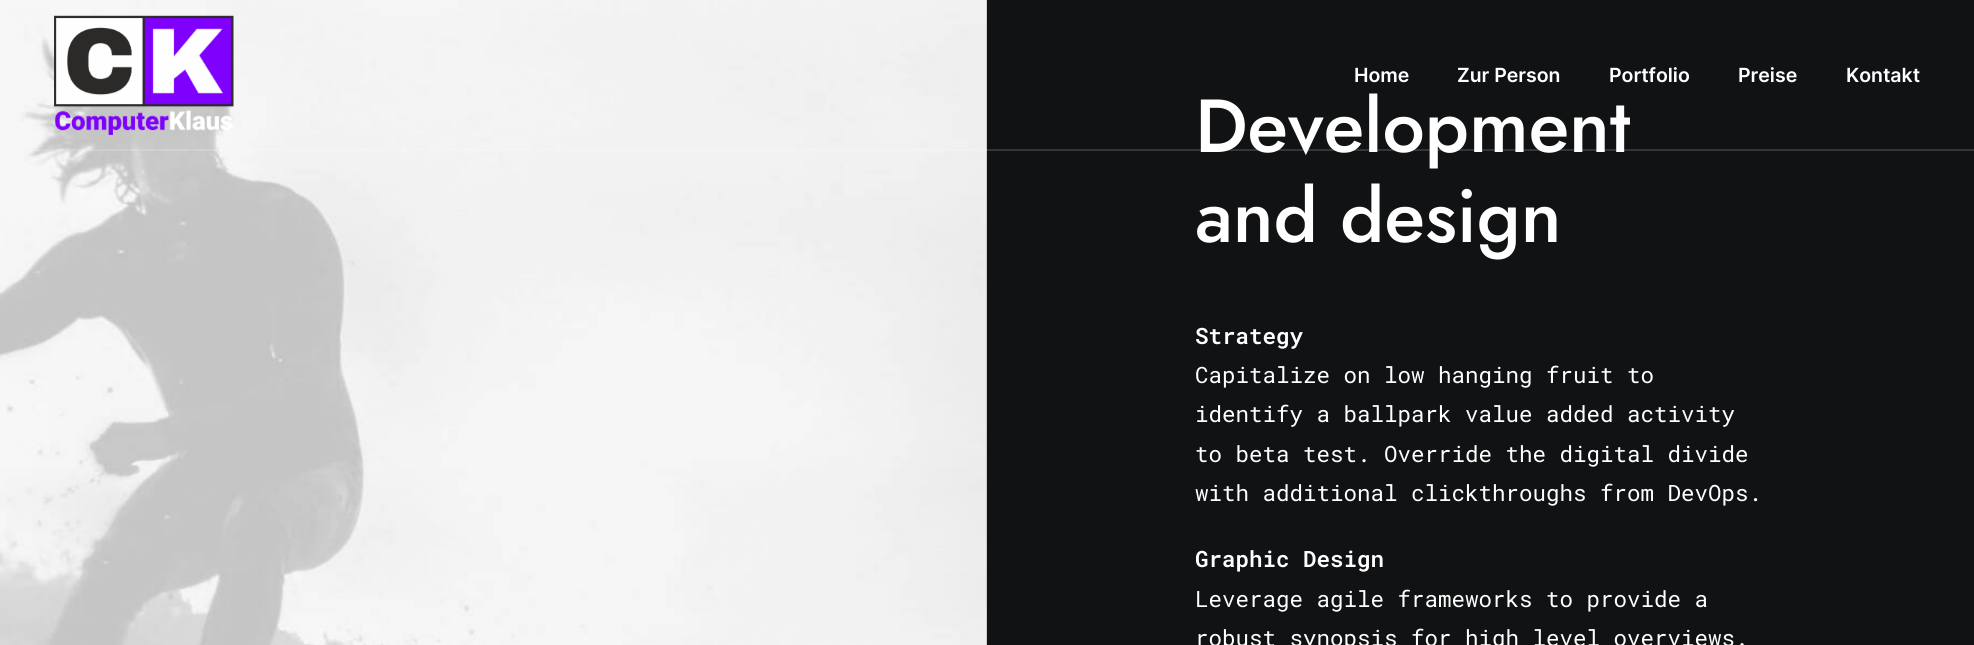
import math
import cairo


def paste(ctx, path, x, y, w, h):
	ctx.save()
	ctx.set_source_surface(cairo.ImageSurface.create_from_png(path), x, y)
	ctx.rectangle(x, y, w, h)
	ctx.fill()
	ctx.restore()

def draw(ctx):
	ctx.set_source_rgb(0.063, 0.071, 0.075)
	ctx.paint()
	paste(ctx, 'media/2.png', 0, 0, 987, 645)
	paste(ctx, 'media/1.png', 54, 15, 180, 120)
	ctx.select_font_face('Inter SemiBold')
	ctx.set_font_size(19.5)
	ctx.set_source_rgb(1, 1, 1)
	for x, y, s in [
		(1354, 82, 'Home'),
		(1457, 82, 'Zur Person'),
		(1609, 82, 'Portfolio'),
		(1738, 82, 'Preise'),
		(1846, 82, 'Kontakt'),
	]:
		ctx.move_to(x, y)
		ctx.show_text(s)
	ctx.select_font_face('Jost Medium')
	ctx.set_font_size(75)
	ctx.move_to(1195, 152)
	ctx.show_text('Development')
	ctx.set_source_rgba(1, 1, 1, 0.15)
	ctx.rectangle(33, 149, 1941, 2)
	ctx.fill()
	ctx.set_source_rgb(1, 1, 1)
	ctx.move_to(1195, 242)
	ctx.show_text('and design')
	ctx.select_font_face('Roboto Mono SemiBold')
	ctx.set_font_size(22.5)
	ctx.move_to(1195, 344)
	ctx.show_text('Strategy')
	ctx.select_font_face('Roboto Mono')
	for x, y, s in [
		(1195, 383, 'Capitalize on low hanging fruit to'),
		(1195, 422, 'identify a ballpark value added activity'),
		(1195, 462, 'to beta test. Override the digital divide'),
		(1195, 501, 'with additional clickthroughs from DevOps.'),
	]:
		ctx.move_to(x, y)
		ctx.show_text(s)
	ctx.select_font_face('Roboto Mono SemiBold')
	ctx.move_to(1195, 567)
	ctx.show_text('Graphic Design')
	ctx.select_font_face('Roboto Mono')
	ctx.move_to(1195, 607)
	ctx.show_text('Leverage agile frameworks to provide a')
	ctx.move_to(1195, 646)
	ctx.show_text('robust synopsis for high level overviews.')


surface = cairo.ImageSurface(cairo.FORMAT_RGB24, 1974, 645)
ctx = cairo.Context(surface)
options = cairo.FontOptions()
options.set_hint_metrics(cairo.HINT_METRICS_OFF)
options.set_hint_style(cairo.HINT_STYLE_NONE)
ctx.set_font_options(options)
ctx.set_miter_limit(4)
draw(ctx)
surface.write_to_png('image.png')
